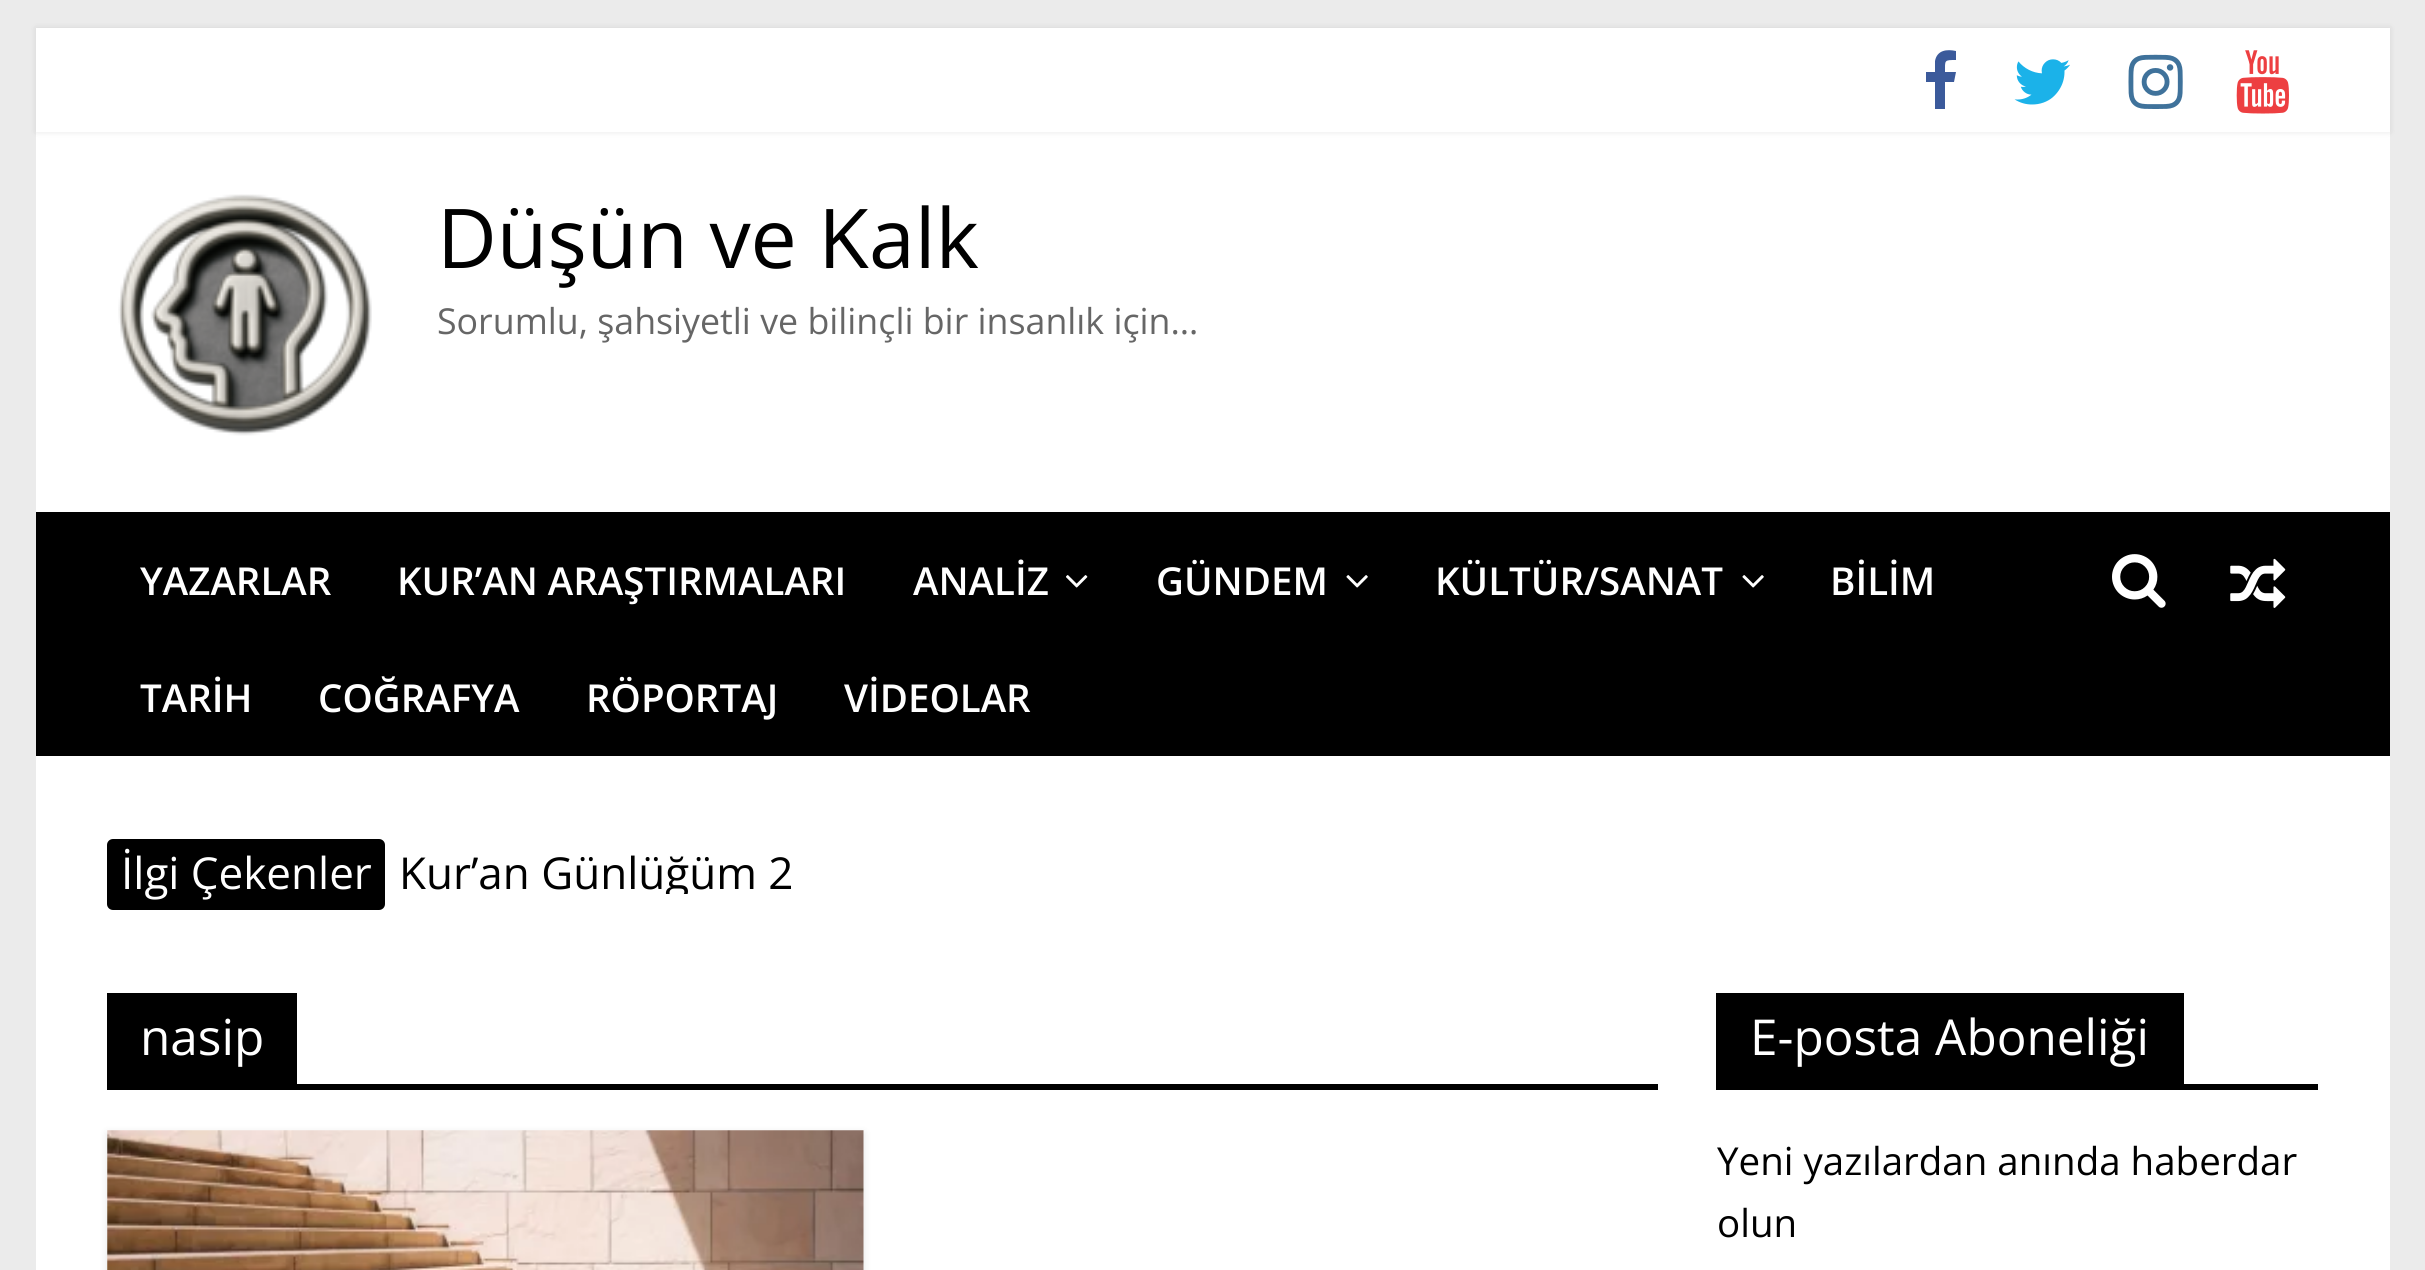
import math
import cairo


def round_path(ctx, x, y, w, h, r):
	ctx.new_sub_path()
	for i, (u, v) in enumerate([(x + w - r, y + h - r), (x + r, y + h - r), (x + r, y + r), (x + w - r, y + r)]):
		ctx.arc(u, v, r, i * math.pi / 2, (i + 1) * math.pi / 2)
	ctx.close_path()

def blur_box(ctx, x, y, w, h, r, blur, alpha):
	ctx.push_group_with_content(cairo.CONTENT_ALPHA)
	ctx.set_operator(cairo.OPERATOR_SOURCE)
	for i in range(15, -16, -2):
		e = blur * i / 6
		if min(w, h) + 2 * e > 0:
			ctx.set_source_rgba(0, 0, 0, alpha * math.erfc((i - 1) / 8.5) / 2)
			round_path(ctx, x - e, y - e, w + 2 * e, h + 2 * e, max(0, min(r + e + blur * .6, min(w, h) / 2 + e)))
			ctx.fill()
	ctx.mask(ctx.pop_group())

def paste(ctx, path, x, y, w, h):
	ctx.save()
	ctx.set_source_surface(cairo.ImageSurface.create_from_png(path), x, y)
	ctx.rectangle(x, y, w, h)
	ctx.fill()
	ctx.restore()

def draw(ctx):
	ctx.set_source_rgb(0.918, 0.918, 0.918)
	ctx.paint()
	ctx.set_source_rgb(1, 1, 1)
	ctx.rectangle(36, 132, 2354, 380)
	ctx.fill()
	ctx.set_source_rgb(0, 0, 0)
	blur_box(ctx, 36, 28, 2354, 104, 0, 3, 0.1)
	ctx.set_source_rgb(1, 1, 1)
	ctx.rectangle(36, 28, 2354, 104)
	ctx.fill()
	ctx.set_source_rgb(0.231, 0.353, 0.608)
	ctx.new_path()
	ctx.move_to(1956, 51)
	ctx.line_to(1956, 60)
	ctx.curve_to(1944, 60, 1945, 60, 1945, 72)
	ctx.line_to(1956, 72)
	ctx.line_to(1954, 82)
	ctx.line_to(1945, 82)
	ctx.line_to(1945, 109)
	ctx.line_to(1935, 109)
	ctx.line_to(1935, 82)
	ctx.line_to(1926, 82)
	ctx.line_to(1926, 72)
	ctx.line_to(1935, 72)
	ctx.line_to(1935, 61)
	ctx.curve_to(1937, 50, 1947, 49, 1956, 51)
	ctx.close_path()
	ctx.fill()
	paste(ctx, 'media/1.png', 2014, 59, 56, 46)
	paste(ctx, 'media/2.png', 2128, 54, 55, 55)
	paste(ctx, 'media/3.png', 2236, 50, 53, 64)
	paste(ctx, 'media/4.png', 118, 194, 254, 242)
	ctx.select_font_face('Open Sans')
	ctx.set_font_size(82.5)
	ctx.set_source_rgb(0, 0, 0)
	ctx.move_to(437, 268)
	ctx.show_text('Düşün ve Kalk')
	ctx.set_font_size(35.75)
	ctx.set_source_rgb(0.4, 0.4, 0.4)
	ctx.move_to(437, 334)
	ctx.show_text('Sorumlu, şahsiyetli ve bilinçli bir insanlık için…')
	ctx.set_source_rgb(0, 0, 0)
	ctx.rectangle(36, 512, 2354, 244)
	ctx.fill()
	ctx.select_font_face('Open Sans SemiBold')
	ctx.set_font_size(38.5)
	ctx.set_source_rgb(1, 1, 1)
	for x, y, s in [
		(140, 595, 'YAZARLAR'),
		(397, 595, 'KUR’AN ARAŞTIRMALARI'),
		(913, 595, 'ANALİZ'),
	]:
		ctx.move_to(x, y)
		ctx.show_text(s)
	paste(ctx, 'media/5.png', 1066, 575, 22, 13)
	ctx.move_to(1156, 595)
	ctx.show_text('GÜNDEM')
	paste(ctx, 'media/6.png', 1346, 575, 22, 13)
	ctx.move_to(1435, 595)
	ctx.show_text('KÜLTÜR/SANAT')
	paste(ctx, 'media/6.png', 1742, 575, 22, 13)
	for x, y, s in [
		(1830, 595, 'BİLİM'),
		(140, 712, 'TARİH'),
		(318, 712, 'COĞRAFYA'),
		(586, 712, 'RÖPORTAJ'),
		(844, 712, 'VİDEOLAR'),
	]:
		ctx.move_to(x, y)
		ctx.show_text(s)
	paste(ctx, 'media/7.png', 2112, 554, 54, 54)
	paste(ctx, 'media/8.png', 2230, 558, 56, 50)
	ctx.rectangle(36, 756, 2354, 514)
	ctx.fill()
	ctx.set_source_rgb(0, 0, 0)
	round_path(ctx, 107, 839, 278, 71, 6)
	ctx.fill()
	ctx.select_font_face('Open Sans')
	ctx.set_font_size(44)
	ctx.set_source_rgb(1, 1, 1)
	ctx.move_to(121, 889)
	ctx.show_text('İlgi Çekenler')
	ctx.save()
	ctx.rectangle(385, 839, 1287, 55)
	ctx.clip()
	ctx.set_source_rgb(0, 0, 0)
	ctx.move_to(399, 889)
	ctx.show_text('Kur’an Günlüğüm 2')
	ctx.restore()
	ctx.set_source_rgb(0, 0, 0)
	ctx.rectangle(107, 1084, 1551, 6)
	ctx.fill()
	ctx.rectangle(107, 993, 190, 91)
	ctx.fill()
	ctx.set_font_size(49.5)
	ctx.set_source_rgb(1, 1, 1)
	ctx.move_to(140, 1055)
	ctx.show_text('nasip')
	ctx.set_source_rgb(0, 0, 0)
	blur_box(ctx, 107, 1133, 757, 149, 0, 4, 0.1)
	paste(ctx, 'media/9.png', 107, 1130, 757, 140)
	ctx.set_source_rgb(0, 0, 0)
	ctx.rectangle(1716, 1084, 602, 6)
	ctx.fill()
	ctx.rectangle(1716, 993, 468, 91)
	ctx.fill()
	ctx.set_source_rgb(1, 1, 1)
	ctx.move_to(1750, 1055)
	ctx.show_text('E-posta Aboneliği')
	ctx.set_font_size(38.5)
	ctx.set_source_rgb(0, 0, 0)
	ctx.move_to(1717, 1175)
	ctx.show_text('Yeni yazılardan anında haberdar')
	ctx.move_to(1717, 1237)
	ctx.show_text('olun')


surface = cairo.ImageSurface(cairo.FORMAT_RGB24, 2425, 1270)
ctx = cairo.Context(surface)
options = cairo.FontOptions()
options.set_hint_metrics(cairo.HINT_METRICS_OFF)
options.set_hint_style(cairo.HINT_STYLE_NONE)
ctx.set_font_options(options)
ctx.set_miter_limit(4)
draw(ctx)
surface.write_to_png('image.png')
